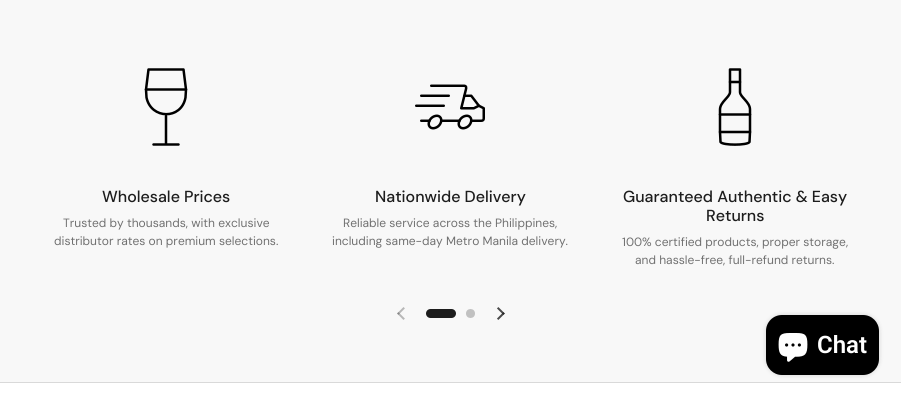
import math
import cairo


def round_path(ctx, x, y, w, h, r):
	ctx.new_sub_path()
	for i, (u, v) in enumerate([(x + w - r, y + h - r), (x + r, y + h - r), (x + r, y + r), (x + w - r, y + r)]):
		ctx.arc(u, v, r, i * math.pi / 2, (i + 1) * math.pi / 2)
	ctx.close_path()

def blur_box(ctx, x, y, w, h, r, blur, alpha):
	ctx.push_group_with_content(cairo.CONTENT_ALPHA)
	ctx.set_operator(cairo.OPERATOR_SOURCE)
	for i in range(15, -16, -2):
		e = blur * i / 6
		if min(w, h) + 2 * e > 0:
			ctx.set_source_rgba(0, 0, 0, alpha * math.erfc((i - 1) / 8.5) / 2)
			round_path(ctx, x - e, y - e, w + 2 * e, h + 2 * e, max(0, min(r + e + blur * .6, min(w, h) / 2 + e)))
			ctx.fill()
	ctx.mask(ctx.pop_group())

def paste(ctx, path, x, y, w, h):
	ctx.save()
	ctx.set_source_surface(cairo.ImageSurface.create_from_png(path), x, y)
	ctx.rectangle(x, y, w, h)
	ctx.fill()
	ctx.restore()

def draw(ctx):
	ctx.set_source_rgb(0.969, 0.969, 0.969)
	ctx.paint()
	ctx.new_path()
	ctx.move_to(186, 89.5)
	ctx.line_to(183.5, 69.5)
	ctx.line_to(148.5, 69.5)
	ctx.line_to(146, 89.5)
	ctx.move_to(166, 116)
	ctx.line_to(166, 144.5)
	ctx.move_to(153.5, 144.5)
	ctx.line_to(178.5, 144.5)
	ctx.set_source_rgb(0, 0, 0)
	ctx.set_line_width(2.5)
	ctx.set_line_cap(cairo.LINE_CAP_ROUND)
	ctx.set_line_join(cairo.LINE_JOIN_ROUND)
	ctx.stroke()
	ctx.new_path()
	ctx.move_to(146, 89.5)
	ctx.line_to(146.5, 97.5)
	ctx.curve_to(151, 119.5, 181.5, 120, 185.5, 97.5)
	ctx.line_to(186, 89.5)
	ctx.close_path()
	ctx.stroke()
	ctx.select_font_face('DM Sans Medium')
	ctx.set_font_size(16)
	ctx.set_source_rgb(0.114, 0.114, 0.114)
	ctx.move_to(102, 202)
	ctx.show_text('Wholesale Prices')
	ctx.select_font_face('DM Sans')
	ctx.set_font_size(12)
	ctx.set_source_rgb(0.439, 0.439, 0.439)
	ctx.move_to(63, 227)
	ctx.show_text('Trusted by thousands, with exclusive')
	ctx.move_to(54, 245)
	ctx.show_text('distributor rates on premium selections.')
	paste(ctx, 'media/1.png', 415, 84, 70, 46)
	ctx.select_font_face('DM Sans Medium')
	ctx.set_font_size(16)
	ctx.set_source_rgb(0.114, 0.114, 0.114)
	ctx.move_to(375, 202)
	ctx.show_text('Nationwide Delivery')
	ctx.select_font_face('DM Sans')
	ctx.set_font_size(12)
	ctx.set_source_rgb(0.439, 0.439, 0.439)
	ctx.move_to(343, 227)
	ctx.show_text('Reliable service across the Philippines,')
	ctx.move_to(332, 245)
	ctx.show_text('including same-day Metro Manila delivery.')
	ctx.new_path()
	ctx.move_to(750, 114.5)
	ctx.line_to(750, 109.5)
	ctx.curve_to(750, 102, 740, 97, 740, 92)
	ctx.line_to(740, 82)
	ctx.move_to(730, 82)
	ctx.line_to(730, 92)
	ctx.curve_to(730, 97, 720, 102, 720, 109.5)
	ctx.line_to(720, 114.5)
	ctx.move_to(720, 132)
	ctx.line_to(720.5, 142)
	ctx.curve_to(722.5, 145.5, 747.5, 145.5, 749.5, 142)
	ctx.line_to(750, 132)
	ctx.set_source_rgb(0, 0, 0)
	ctx.stroke()
	ctx.new_path()
	ctx.move_to(720, 114.5)
	ctx.line_to(750, 114.5)
	ctx.line_to(750, 132)
	ctx.line_to(720, 132)
	ctx.close_path()
	ctx.move_to(730, 69.5)
	ctx.line_to(740, 69.5)
	ctx.line_to(740, 82)
	ctx.line_to(730, 82)
	ctx.close_path()
	ctx.stroke()
	ctx.select_font_face('DM Sans Medium')
	ctx.set_font_size(16)
	ctx.set_source_rgb(0.114, 0.114, 0.114)
	ctx.move_to(623, 202)
	ctx.show_text('Guaranteed Authentic & Easy')
	ctx.move_to(706, 221)
	ctx.show_text('Returns')
	ctx.select_font_face('DM Sans')
	ctx.set_font_size(12)
	ctx.set_source_rgb(0.439, 0.439, 0.439)
	ctx.move_to(622, 246)
	ctx.show_text('100% certified products, proper storage,')
	ctx.move_to(635, 264)
	ctx.show_text('and hassle-free, full-refund returns.')
	paste(ctx, 'media/2.png', 397, 307, 8, 13)
	ctx.set_source_rgb(0.114, 0.114, 0.114)
	round_path(ctx, 426, 309, 30, 9, 4.5)
	ctx.fill()
	ctx.set_source_rgb(0.757, 0.757, 0.757)
	ctx.arc(470.5, 313.5, 4.5, 0, 2 * math.pi)
	ctx.fill()
	paste(ctx, 'media/3.png', 497, 307, 8, 13)
	ctx.set_source_rgb(1, 1, 1)
	ctx.rectangle(0, 383, 901, 13)
	ctx.fill()
	ctx.set_source_rgb(0.851, 0.851, 0.851)
	ctx.rectangle(0, 382, 901, 1)
	ctx.fill()
	ctx.set_source_rgb(0, 0, 0)
	blur_box(ctx, 766, 315, 113, 60, 16, 2.5, 0.15)
	ctx.set_source_rgb(0, 0, 0)
	round_path(ctx, 766, 315, 113, 60, 16)
	ctx.fill()
	paste(ctx, 'media/4.png', 778, 333, 30, 29)
	ctx.select_font_face('Roboto SemiBold')
	ctx.set_font_size(24)
	ctx.set_source_rgb(1, 1, 1)
	ctx.move_to(817, 353)
	ctx.show_text('Chat')


surface = cairo.ImageSurface(cairo.FORMAT_RGB24, 901, 396)
ctx = cairo.Context(surface)
options = cairo.FontOptions()
options.set_hint_metrics(cairo.HINT_METRICS_OFF)
options.set_hint_style(cairo.HINT_STYLE_NONE)
ctx.set_font_options(options)
ctx.set_miter_limit(4)
draw(ctx)
surface.write_to_png('image.png')
